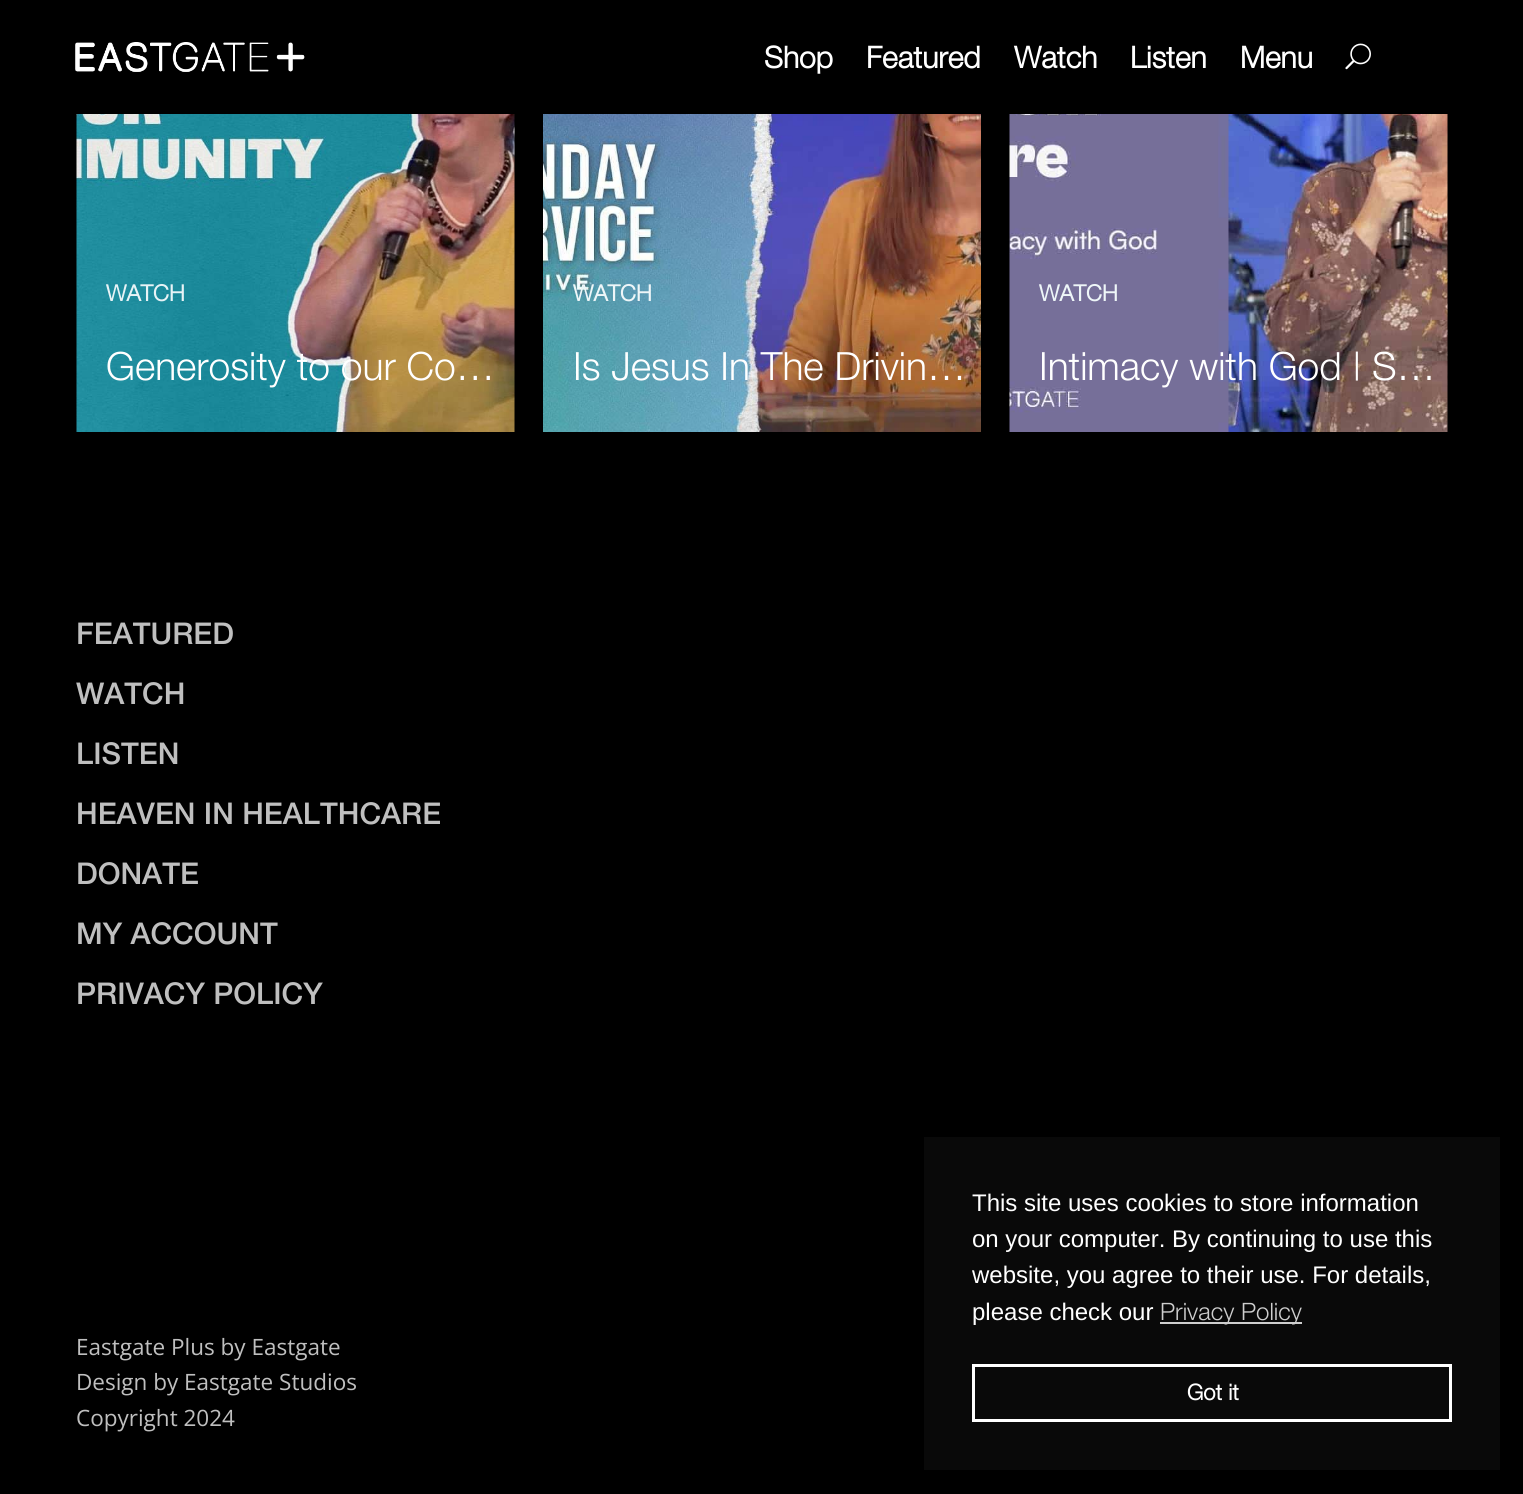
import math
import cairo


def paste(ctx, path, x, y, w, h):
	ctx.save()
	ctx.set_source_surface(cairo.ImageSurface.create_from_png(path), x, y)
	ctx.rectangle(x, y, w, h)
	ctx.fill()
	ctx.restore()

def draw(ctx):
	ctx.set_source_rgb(0, 0, 0)
	ctx.paint()
	paste(ctx, 'media/1.png', 75, 42, 230, 30)
	ctx.select_font_face('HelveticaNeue', cairo.FONT_SLANT_NORMAL, cairo.FONT_WEIGHT_BOLD)
	ctx.set_font_size(30)
	ctx.set_source_rgb(1, 1, 1)
	for x, y, s in [
		(764, 68, 'Shop'),
		(866, 68, 'Featured'),
		(1014, 68, 'Watch'),
		(1130, 68, 'Listen'),
		(1240, 68, 'Menu'),
	]:
		ctx.move_to(x, y)
		ctx.show_text(s)
	paste(ctx, 'media/2.png', 1345, 43, 26, 27)
	paste(ctx, 'media/3.png', 76, 114, 439, 318)
	ctx.set_font_size(22.5)
	ctx.set_source_rgb(0.91, 0.953, 0.961)
	ctx.move_to(106, 301)
	ctx.show_text('WATCH')
	ctx.select_font_face('HelveticaNeue Light')
	ctx.set_font_size(39)
	ctx.set_source_rgb(1, 1, 1)
	ctx.move_to(106, 380)
	ctx.show_text('Generosity to our Co…')
	paste(ctx, 'media/4.png', 543, 114, 438, 318)
	ctx.select_font_face('HelveticaNeue', cairo.FONT_SLANT_NORMAL, cairo.FONT_WEIGHT_BOLD)
	ctx.set_font_size(22.5)
	ctx.set_source_rgb(0.933, 0.961, 0.969)
	ctx.move_to(573, 301)
	ctx.show_text('WATCH')
	ctx.select_font_face('HelveticaNeue Light')
	ctx.set_font_size(39)
	ctx.set_source_rgb(1, 1, 1)
	ctx.move_to(573, 380)
	ctx.show_text('Is Jesus In The Drivin…')
	paste(ctx, 'media/5.png', 1009, 114, 439, 318)
	ctx.select_font_face('HelveticaNeue', cairo.FONT_SLANT_NORMAL, cairo.FONT_WEIGHT_BOLD)
	ctx.set_font_size(22.5)
	ctx.set_source_rgb(0.933, 0.961, 0.969)
	ctx.move_to(1039, 301)
	ctx.show_text('WATCH')
	ctx.select_font_face('HelveticaNeue Light')
	ctx.set_font_size(39)
	ctx.set_source_rgb(1, 1, 1)
	ctx.move_to(1039, 380)
	ctx.show_text('Intimacy with God | S…')
	ctx.select_font_face('HelveticaNeue Medium')
	ctx.set_font_size(30)
	ctx.set_source_rgb(0.749, 0.749, 0.749)
	for x, y, s in [
		(76, 644, 'FEATURED'),
		(76, 704, 'WATCH'),
		(76, 764, 'LISTEN'),
		(76, 824, 'HEAVEN IN HEALTHCARE'),
		(76, 884, 'DONATE'),
		(76, 944, 'MY ACCOUNT'),
		(76, 1004, 'PRIVACY POLICY'),
	]:
		ctx.move_to(x, y)
		ctx.show_text(s)
	ctx.select_font_face('Open Sans')
	ctx.set_font_size(22.5)
	for x, y, s in [
		(76, 1355, 'Eastgate Plus by Eastgate'),
		(76, 1390, 'Design by Eastgate Studios'),
		(76, 1426, 'Copyright 2024'),
	]:
		ctx.move_to(x, y)
		ctx.show_text(s)
	ctx.set_source_rgb(0.039, 0.039, 0.039)
	ctx.rectangle(924, 1137, 576, 333)
	ctx.fill()
	ctx.select_font_face('Liberation Sans')
	ctx.set_font_size(24)
	ctx.set_source_rgb(1, 1, 1)
	for x, y, s in [
		(972, 1211, 'This site uses cookies to store information'),
		(972, 1247, 'on your computer. By continuing to use this'),
		(972, 1283, 'website, you agree to their use. For details,'),
		(972, 1320, 'please check our'),
	]:
		ctx.move_to(x, y)
		ctx.show_text(s)
	ctx.set_source_rgb(0.808, 0.808, 0.808)
	ctx.rectangle(1160, 1322, 142, 2)
	ctx.fill()
	ctx.select_font_face('HelveticaNeue Light')
	ctx.move_to(1160, 1320)
	ctx.show_text('Privacy Policy')
	ctx.rectangle(973.5, 1365.5, 477, 55)
	ctx.set_source_rgb(1, 1, 1)
	ctx.set_line_width(3)
	ctx.stroke()
	ctx.select_font_face('HelveticaNeue', cairo.FONT_SLANT_NORMAL, cairo.FONT_WEIGHT_BOLD)
	ctx.set_font_size(22)
	ctx.move_to(1187, 1400)
	ctx.show_text('Got it')


surface = cairo.ImageSurface(cairo.FORMAT_RGB24, 1523, 1494)
ctx = cairo.Context(surface)
options = cairo.FontOptions()
options.set_hint_metrics(cairo.HINT_METRICS_OFF)
options.set_hint_style(cairo.HINT_STYLE_NONE)
ctx.set_font_options(options)
ctx.set_miter_limit(4)
draw(ctx)
surface.write_to_png('image.png')
